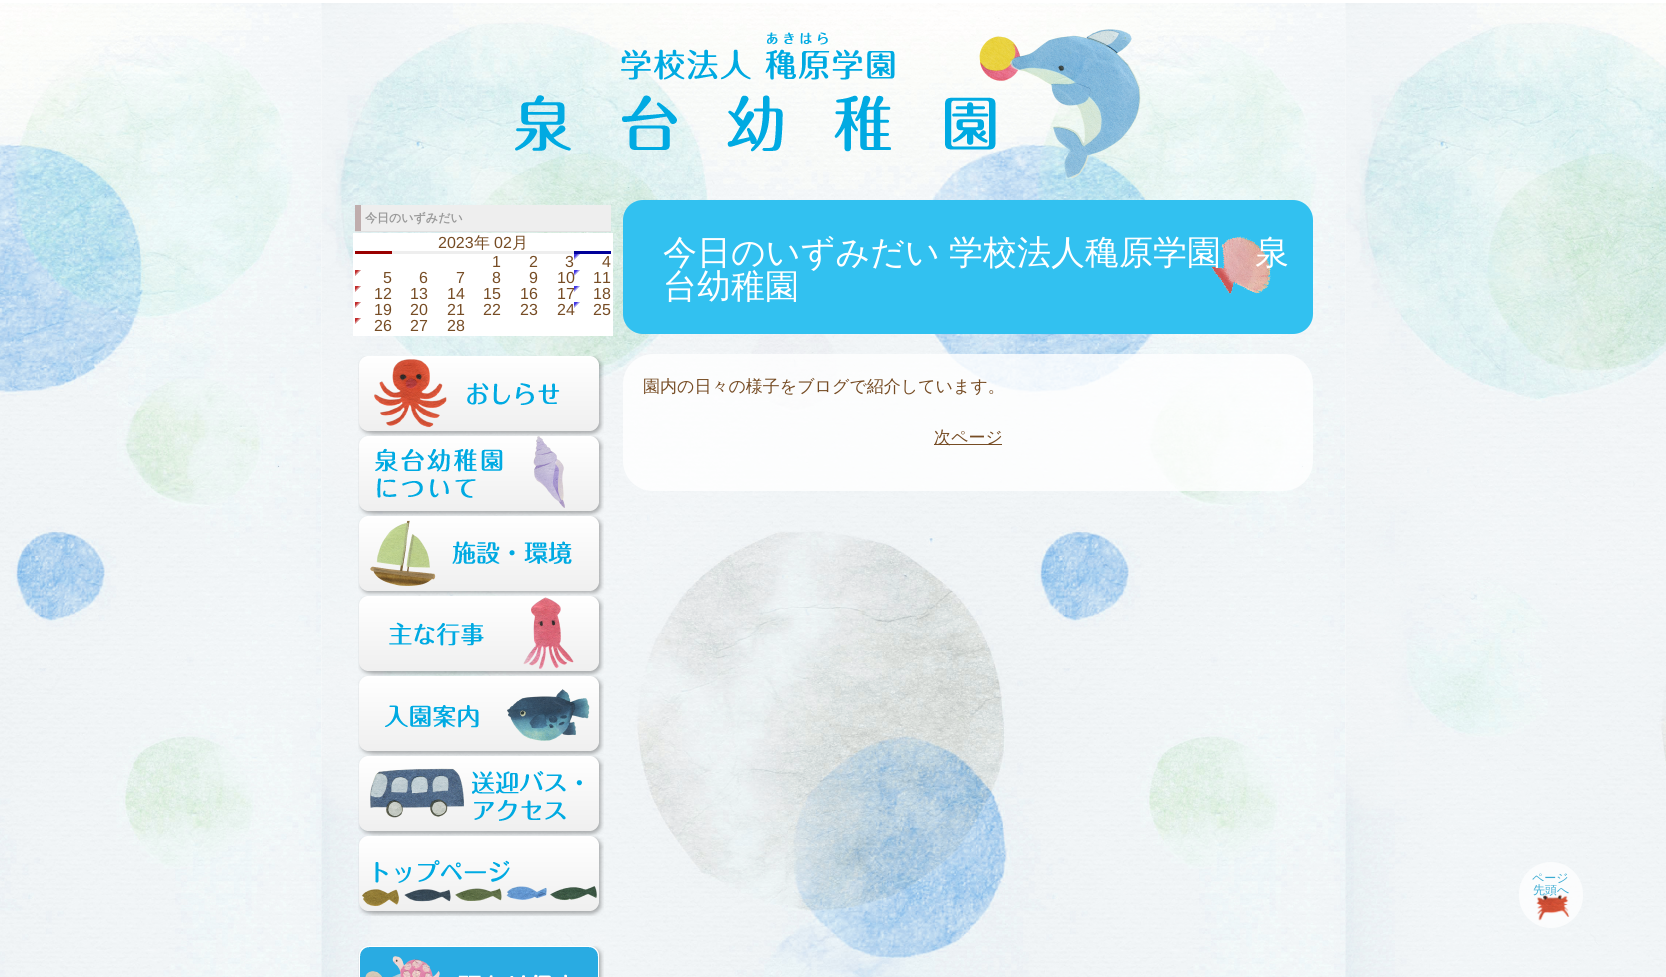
import math
import cairo


def write_spaced(ctx, x, y, s, letter, word):
	ctx.move_to(x, y)
	for ch in s:
		ctx.show_text(ch)
		ctx.rel_move_to(letter + word * (ch == ' '), 0)

def round_path(ctx, x, y, w, h, r):
	ctx.new_sub_path()
	for i, (u, v) in enumerate([(x + w - r, y + h - r), (x + r, y + h - r), (x + r, y + r), (x + w - r, y + r)]):
		ctx.arc(u, v, r, i * math.pi / 2, (i + 1) * math.pi / 2)
	ctx.close_path()

def paste(ctx, path, x, y, w, h):
	ctx.save()
	ctx.set_source_surface(cairo.ImageSurface.create_from_png(path), x, y)
	ctx.rectangle(x, y, w, h)
	ctx.fill()
	ctx.restore()

def draw(ctx):
	ctx.set_source_rgb(1, 1, 1)
	ctx.paint()
	paste(ctx, 'media/1.png', 0, 3, 1666, 974)
	paste(ctx, 'media/2.png', 508, 29, 633, 171)
	ctx.set_source_rgb(0.933, 0.933, 0.933)
	ctx.rectangle(361, 205, 250, 26)
	ctx.fill()
	ctx.set_source_rgb(0.749, 0.678, 0.678)
	ctx.rectangle(355, 205, 6, 27)
	ctx.fill()
	ctx.set_source_rgb(0.878, 0.878, 0.878)
	ctx.rectangle(355, 231, 256, 1)
	ctx.fill()
	ctx.select_font_face('WenQuanYi Zen Hei', cairo.FONT_SLANT_NORMAL, cairo.FONT_WEIGHT_BOLD)
	ctx.set_font_size(12)
	ctx.set_source_rgb(0.6, 0.6, 0.6)
	ctx.move_to(365, 222)
	ctx.show_text('今日のいずみだい')
	ctx.set_source_rgb(1, 1, 1)
	ctx.rectangle(353, 233, 260, 103)
	ctx.fill()
	ctx.select_font_face('Liberation Sans')
	ctx.set_font_size(16)
	ctx.set_source_rgb(0.463, 0.298, 0.141)
	ctx.move_to(438, 248)
	ctx.show_text('2023')
	ctx.select_font_face('WenQuanYi Zen Hei Medium')
	ctx.move_to(474, 248)
	ctx.show_text('年')
	ctx.select_font_face('Liberation Sans')
	ctx.move_to(494, 248)
	ctx.show_text('02')
	ctx.select_font_face('WenQuanYi Zen Hei Medium')
	ctx.move_to(512, 248)
	ctx.show_text('月')
	ctx.set_source_rgb(0.6, 0, 0)
	ctx.rectangle(355, 251, 37, 3)
	ctx.fill()
	ctx.set_source_rgb(0.933, 0.933, 0.933)
	ctx.rectangle(392, 251, 182, 3)
	ctx.fill()
	ctx.set_source_rgb(0, 0, 0.6)
	ctx.rectangle(574, 251, 37, 3)
	ctx.fill()
	ctx.select_font_face('Liberation Sans')
	ctx.set_source_rgb(0.463, 0.298, 0.141)
	for x, y, s in [
		(492, 267, '1'),
		(529, 267, '2'),
		(565, 267, '3'),
	]:
		ctx.move_to(x, y)
		ctx.show_text(s)
	paste(ctx, 'media/3.png', 574, 254, 6, 6)
	ctx.move_to(602, 267)
	ctx.show_text('4')
	paste(ctx, 'media/4.png', 355, 270, 6, 6)
	for x, y, s in [
		(383, 283, '5'),
		(419, 283, '6'),
		(456, 283, '7'),
		(492, 283, '8'),
		(529, 283, '9'),
		(557, 283, '10'),
	]:
		ctx.move_to(x, y)
		ctx.show_text(s)
	paste(ctx, 'media/3.png', 574, 270, 6, 6)
	ctx.move_to(593, 283)
	ctx.show_text('11')
	paste(ctx, 'media/4.png', 355, 286, 6, 6)
	for x, y, s in [
		(374, 299, '12'),
		(410, 299, '13'),
		(447, 299, '14'),
		(483, 299, '15'),
		(520, 299, '16'),
		(557, 299, '17'),
	]:
		ctx.move_to(x, y)
		ctx.show_text(s)
	paste(ctx, 'media/3.png', 574, 286, 6, 6)
	ctx.move_to(593, 299)
	ctx.show_text('18')
	paste(ctx, 'media/4.png', 355, 302, 6, 6)
	for x, y, s in [
		(374, 315, '19'),
		(410, 315, '20'),
		(447, 315, '21'),
		(483, 315, '22'),
		(520, 315, '23'),
		(557, 315, '24'),
	]:
		ctx.move_to(x, y)
		ctx.show_text(s)
	paste(ctx, 'media/3.png', 574, 302, 6, 6)
	ctx.move_to(593, 315)
	ctx.show_text('25')
	paste(ctx, 'media/4.png', 355, 318, 6, 6)
	for x, y, s in [
		(374, 331, '26'),
		(410, 331, '27'),
		(447, 331, '28'),
	]:
		ctx.move_to(x, y)
		ctx.show_text(s)
	paste(ctx, 'media/5.png', 358, 356, 246, 80)
	paste(ctx, 'media/6.png', 358, 436, 246, 80)
	paste(ctx, 'media/7.png', 358, 516, 246, 80)
	paste(ctx, 'media/8.png', 358, 596, 246, 80)
	paste(ctx, 'media/9.png', 358, 676, 246, 80)
	paste(ctx, 'media/10.png', 358, 756, 246, 80)
	paste(ctx, 'media/11.png', 358, 836, 246, 80)
	paste(ctx, 'media/12.png', 358, 946, 246, 31)
	ctx.set_source_rgb(0.196, 0.757, 0.941)
	round_path(ctx, 623, 200, 690, 134, 20)
	ctx.fill()
	paste(ctx, 'media/13.png', 1211, 236, 60, 58)
	ctx.select_font_face('WenQuanYi Zen Hei Medium')
	ctx.set_font_size(34)
	ctx.set_source_rgb(1, 1, 1)
	write_spaced(ctx, 663, 264, '今日のいずみだい 学校法人穐原学園　泉', 0, -1)
	ctx.move_to(663, 298)
	ctx.show_text('台幼稚園')
	ctx.set_source_rgba(1, 1, 1, 0.8)
	round_path(ctx, 623, 354, 690, 137, 30)
	ctx.fill()
	ctx.set_font_size(17)
	ctx.set_source_rgb(0.463, 0.298, 0.141)
	ctx.move_to(643, 392)
	ctx.show_text('園内の日々の様子をブログで紹介しています。')
	ctx.rectangle(934, 444, 68, 1)
	ctx.fill()
	ctx.move_to(934, 443)
	ctx.show_text('次ページ')
	ctx.set_source_rgba(1, 1, 1, 0.7)
	round_path(ctx, 1519, 862, 64, 66, 32)
	ctx.fill()
	paste(ctx, 'media/14.png', 1536, 894, 34, 27)
	ctx.set_font_size(12)
	ctx.set_source_rgb(0.227, 0.671, 0.824)
	ctx.move_to(1532, 882)
	ctx.show_text('ページ')
	ctx.move_to(1533, 894)
	ctx.show_text('先頭へ')


surface = cairo.ImageSurface(cairo.FORMAT_RGB24, 1666, 977)
ctx = cairo.Context(surface)
options = cairo.FontOptions()
options.set_hint_metrics(cairo.HINT_METRICS_OFF)
options.set_hint_style(cairo.HINT_STYLE_NONE)
ctx.set_font_options(options)
ctx.set_miter_limit(4)
draw(ctx)
surface.write_to_png('image.png')
